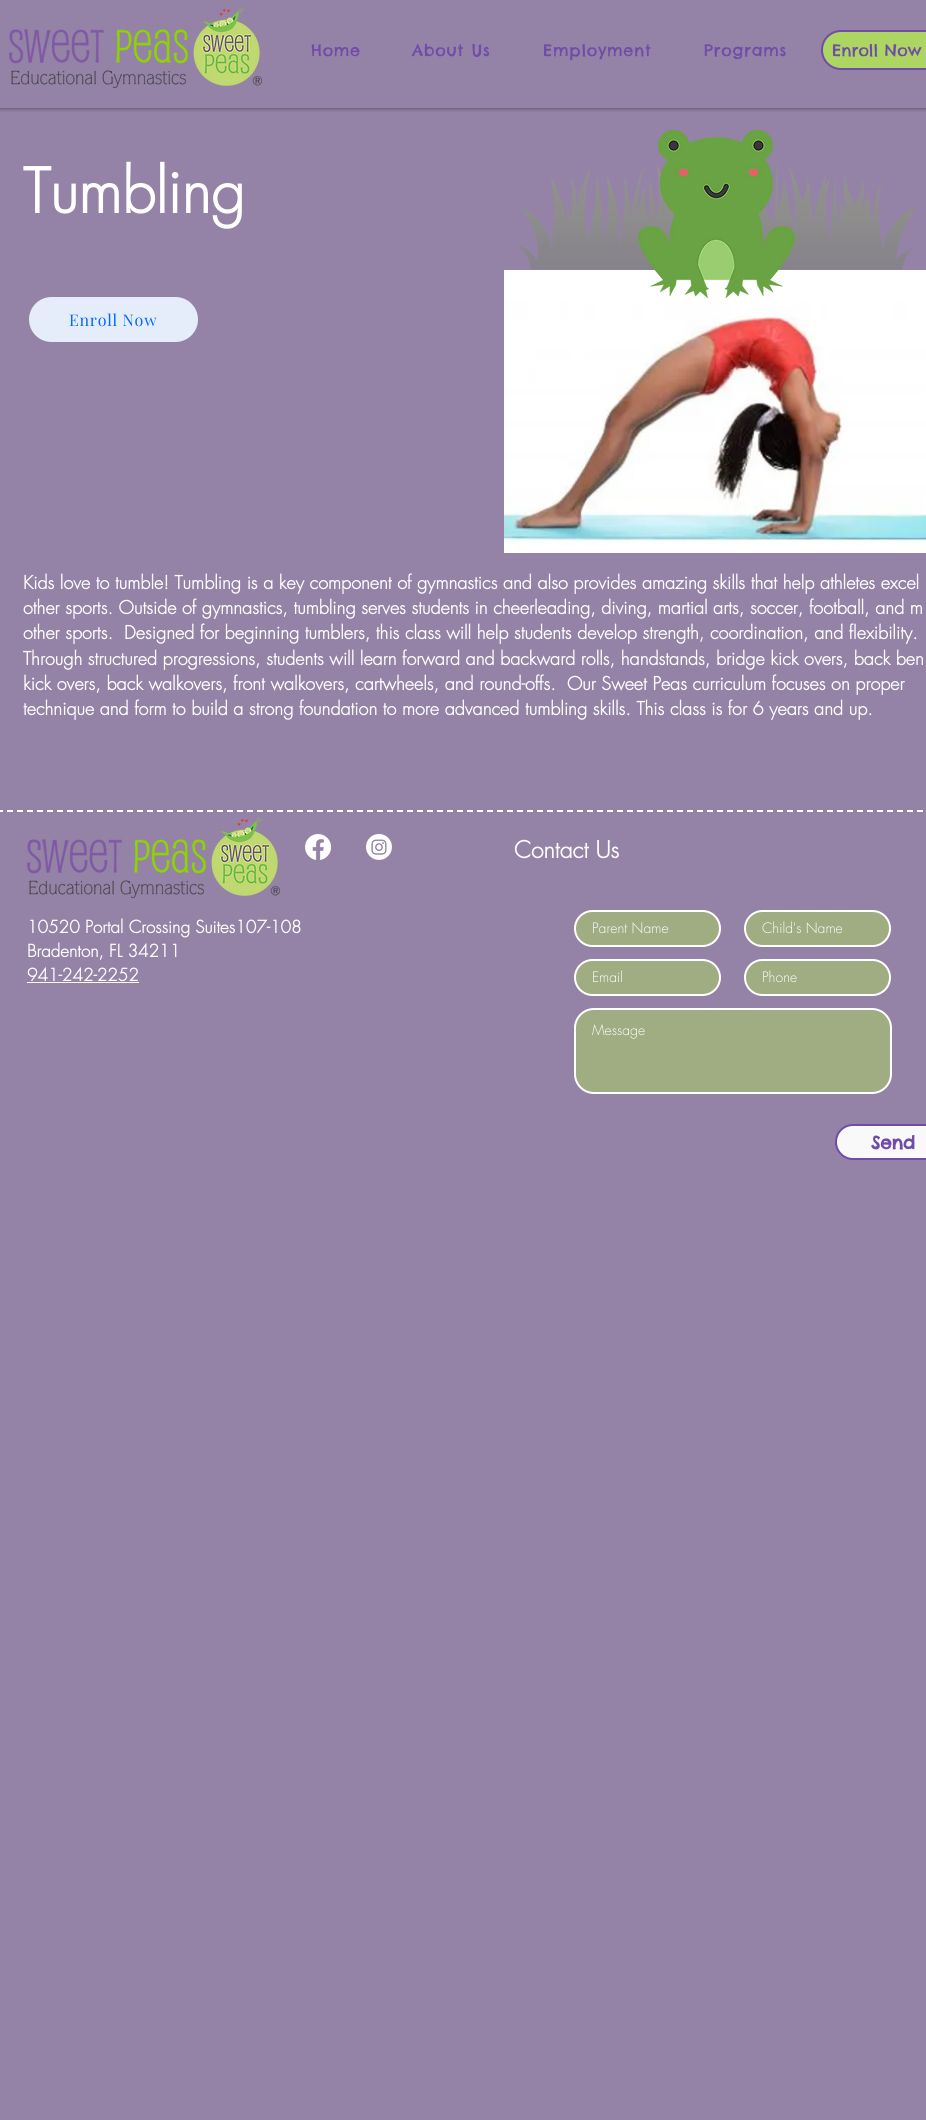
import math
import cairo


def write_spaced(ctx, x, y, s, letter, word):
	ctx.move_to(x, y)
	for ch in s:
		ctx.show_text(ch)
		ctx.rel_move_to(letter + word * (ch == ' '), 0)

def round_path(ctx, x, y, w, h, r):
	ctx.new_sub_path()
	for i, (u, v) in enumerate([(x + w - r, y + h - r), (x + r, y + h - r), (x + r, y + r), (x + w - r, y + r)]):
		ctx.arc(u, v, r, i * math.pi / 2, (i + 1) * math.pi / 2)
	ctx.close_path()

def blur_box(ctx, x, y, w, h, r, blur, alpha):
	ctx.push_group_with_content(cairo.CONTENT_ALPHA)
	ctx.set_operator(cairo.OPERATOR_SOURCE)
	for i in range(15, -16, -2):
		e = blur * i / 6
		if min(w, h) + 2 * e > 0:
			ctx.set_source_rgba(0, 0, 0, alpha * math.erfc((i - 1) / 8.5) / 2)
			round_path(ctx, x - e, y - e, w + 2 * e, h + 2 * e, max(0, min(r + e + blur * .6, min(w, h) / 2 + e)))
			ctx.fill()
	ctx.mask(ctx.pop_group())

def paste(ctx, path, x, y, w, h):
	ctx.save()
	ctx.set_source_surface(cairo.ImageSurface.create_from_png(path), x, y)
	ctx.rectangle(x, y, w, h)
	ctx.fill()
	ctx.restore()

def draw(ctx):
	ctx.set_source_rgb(0.58, 0.514, 0.651)
	ctx.paint()
	ctx.save()
	ctx.rectangle(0, 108, 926, 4)
	ctx.clip()
	ctx.set_source_rgb(0, 0, 0)
	blur_box(ctx, 0, 0, 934, 108, 0, 2.5, 0.5)
	ctx.restore()
	paste(ctx, 'media/1.png', 9, 7, 253, 81)
	ctx.select_font_face('Chelsea Market')
	ctx.set_font_size(16)
	ctx.set_source_rgb(0.439, 0.298, 0.659)
	for x, y, s in [
		(311, 56, 'Home'),
		(412, 56, 'About Us'),
		(543, 56, 'Employment'),
		(704, 56, 'Programs'),
	]:
		write_spaced(ctx, x, y, s, 0.75, 0)
	ctx.set_source_rgb(0.675, 0.839, 0.38)
	round_path(ctx, 822, 31, 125, 38, 19)
	ctx.fill_preserve()
	ctx.set_source_rgb(0.439, 0.298, 0.659)
	ctx.stroke()
	ctx.move_to(832, 56)
	ctx.show_text('Enroll Now')
	paste(ctx, 'media/3.png', 504, 270, 422, 283)
	paste(ctx, 'media/2.png', 517, 129, 399, 169)
	ctx.select_font_face('futura', cairo.FONT_SLANT_NORMAL, cairo.FONT_WEIGHT_BOLD)
	ctx.set_font_size(60)
	ctx.set_source_rgb(1, 1, 1)
	ctx.move_to(23, 213)
	ctx.show_text('Tumbling')
	ctx.set_font_size(18)
	for x, y, s in [
		(23, 589, 'Kids love to tumble! Tumbling is a key component of gymnastics and also provides amazing skills that help athletes excel'),
		(23, 614, 'other sports. Outside of gymnastics, tumbling serves students in cheerleading, diving, martial arts, soccer, football, and m'),
		(23, 639, 'other sports.  Designed for beginning tumblers, this class will help students develop strength, coordination, and flexibility.'),
		(23, 665, 'Through structured progressions, students will learn forward and backward rolls, handstands, bridge kick overs, back ben'),
		(23, 690, 'kick overs, back walkovers, front walkovers, cartwheels, and round-offs.  Our Sweet Peas curriculum focuses on proper'),
		(23, 715, 'technique and form to build a strong foundation to more advanced tumbling skills. This class is for 6 years and up.'),
	]:
		ctx.move_to(x, y)
		ctx.show_text(s)
	ctx.set_source_rgb(0.898, 0.922, 0.98)
	round_path(ctx, 29, 297, 169, 45, 22.5)
	ctx.fill()
	ctx.select_font_face('Playfair Display')
	ctx.set_font_size(16)
	ctx.set_source_rgb(0, 0.412, 1)
	write_spaced(ctx, 69, 326, 'Enroll Now', 0.75, 0)
	ctx.new_path()
	ctx.move_to(-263, 811)
	ctx.line_to(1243, 811)
	ctx.set_source_rgb(1, 1, 1)
	ctx.set_dash([6, 4])
	ctx.stroke()
	paste(ctx, 'media/1.png', 27, 817, 253, 81)
	paste(ctx, 'media/4.png', 305, 834, 26, 26)
	paste(ctx, 'media/5.png', 366, 834, 26, 26)
	ctx.select_font_face('futura', cairo.FONT_SLANT_NORMAL, cairo.FONT_WEIGHT_BOLD)
	ctx.set_font_size(23)
	ctx.move_to(514, 858)
	ctx.show_text('Contact Us')
	ctx.set_font_size(17)
	for x, y, s in [
		(27, 933, '10520 Portal Crossing Suites107-108'),
		(27, 957, 'Bradenton, FL 34211'),
		(27, 981, '941-242-2252'),
	]:
		ctx.move_to(x, y)
		ctx.show_text(s)
	ctx.rectangle(27, 982, 112, 1)
	ctx.fill()
	ctx.set_source_rgb(0.627, 0.678, 0.514)
	round_path(ctx, 575, 911, 145, 35, 17.5)
	ctx.fill_preserve()
	ctx.set_source_rgb(1, 1, 1)
	ctx.set_dash([])
	ctx.stroke()
	ctx.select_font_face('futura Light')
	ctx.set_font_size(14)
	ctx.move_to(592, 933)
	ctx.show_text('Parent Name')
	ctx.set_source_rgb(0.627, 0.678, 0.514)
	round_path(ctx, 745, 911, 145, 35, 17.5)
	ctx.fill_preserve()
	ctx.set_source_rgb(1, 1, 1)
	ctx.stroke()
	ctx.move_to(762, 933)
	ctx.show_text('Child\'s Name')
	ctx.set_source_rgb(0.627, 0.678, 0.514)
	round_path(ctx, 575, 960, 145, 35, 17.5)
	ctx.fill_preserve()
	ctx.set_source_rgb(1, 1, 1)
	ctx.stroke()
	ctx.move_to(592, 982)
	ctx.show_text('Email')
	ctx.set_source_rgb(0.627, 0.678, 0.514)
	round_path(ctx, 745, 960, 145, 35, 17.5)
	ctx.fill_preserve()
	ctx.set_source_rgb(1, 1, 1)
	ctx.stroke()
	ctx.move_to(762, 982)
	ctx.show_text('Phone')
	ctx.set_source_rgb(0.627, 0.678, 0.514)
	round_path(ctx, 575, 1009, 316, 84, 19)
	ctx.fill_preserve()
	ctx.set_source_rgb(1, 1, 1)
	ctx.stroke()
	ctx.move_to(592, 1035)
	ctx.show_text('Message')
	ctx.set_source_rgb(0.976, 0.976, 0.976)
	round_path(ctx, 836, 1125, 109, 34, 17)
	ctx.fill_preserve()
	ctx.set_source_rgb(0.439, 0.298, 0.659)
	ctx.stroke()
	ctx.select_font_face('Chelsea Market', cairo.FONT_SLANT_NORMAL, cairo.FONT_WEIGHT_BOLD)
	ctx.set_font_size(18)
	ctx.move_to(871, 1149)
	ctx.show_text('Send')


surface = cairo.ImageSurface(cairo.FORMAT_RGB24, 926, 2120)
ctx = cairo.Context(surface)
options = cairo.FontOptions()
options.set_hint_metrics(cairo.HINT_METRICS_OFF)
options.set_hint_style(cairo.HINT_STYLE_NONE)
ctx.set_font_options(options)
ctx.set_miter_limit(4)
draw(ctx)
surface.write_to_png('image.png')
